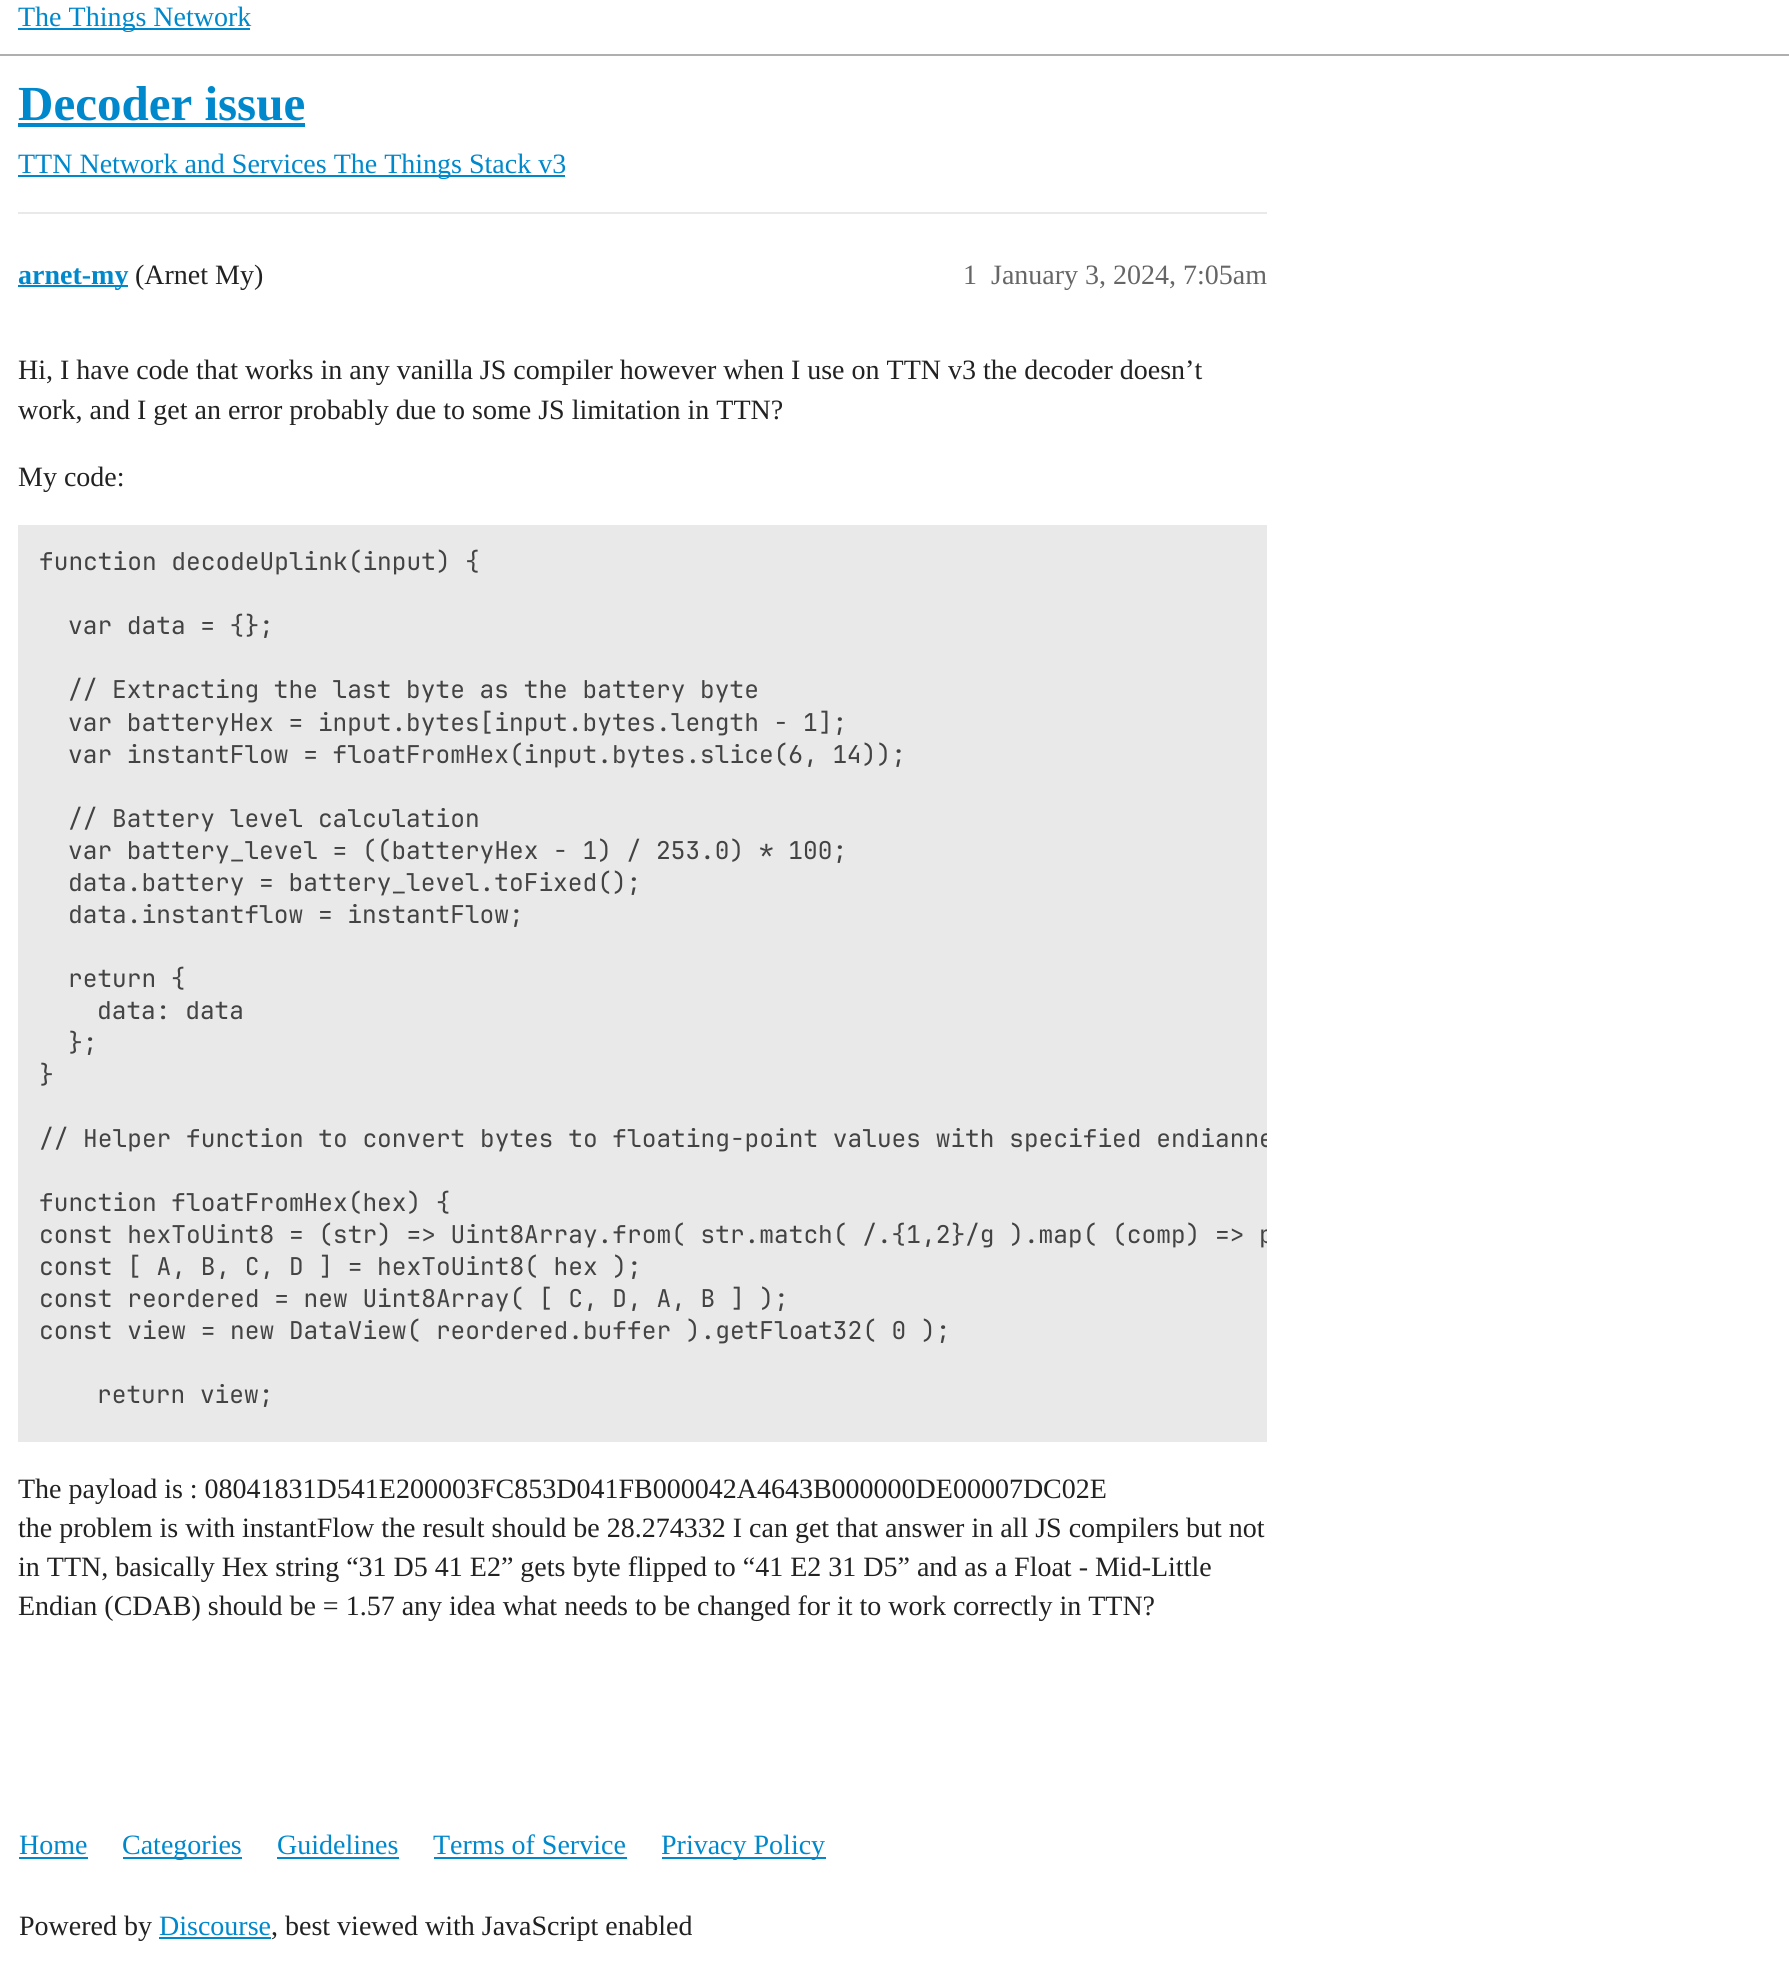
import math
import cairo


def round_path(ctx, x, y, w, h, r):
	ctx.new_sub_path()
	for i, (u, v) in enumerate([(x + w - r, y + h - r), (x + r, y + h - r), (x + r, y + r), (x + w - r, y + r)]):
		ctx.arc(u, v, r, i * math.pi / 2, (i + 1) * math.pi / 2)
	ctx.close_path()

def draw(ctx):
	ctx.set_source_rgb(1, 1, 1)
	ctx.paint()
	ctx.set_source_rgb(0.686, 0.686, 0.686)
	ctx.rectangle(0, 54, 1789, 2)
	ctx.fill()
	ctx.set_source_rgb(0, 0.533, 0.8)
	ctx.rectangle(18, 28, 232, 2)
	ctx.fill()
	ctx.select_font_face('Liberation Serif')
	ctx.set_font_size(28)
	ctx.move_to(18, 26)
	ctx.show_text('The Things Network')
	ctx.select_font_face('Liberation Serif', cairo.FONT_SLANT_NORMAL, cairo.FONT_WEIGHT_BOLD)
	ctx.set_font_size(49)
	ctx.move_to(18, 120)
	ctx.show_text('Decoder issue')
	ctx.rectangle(18, 123, 287, 4)
	ctx.fill()
	ctx.rectangle(18, 175, 547, 2)
	ctx.fill()
	ctx.select_font_face('Liberation Serif')
	ctx.set_font_size(28)
	ctx.move_to(18, 173)
	ctx.show_text('TTN Network and Services The Things Stack v3')
	ctx.set_source_rgb(0.914, 0.914, 0.914)
	ctx.rectangle(18, 212, 1249, 2)
	ctx.fill()
	ctx.set_source_rgb(0, 0.533, 0.8)
	ctx.rectangle(18, 285, 110, 2)
	ctx.fill()
	ctx.select_font_face('Liberation Serif', cairo.FONT_SLANT_NORMAL, cairo.FONT_WEIGHT_BOLD)
	ctx.move_to(18, 284)
	ctx.show_text('arnet-my')
	ctx.select_font_face('Liberation Serif')
	ctx.set_source_rgb(0.133, 0.133, 0.133)
	ctx.move_to(135, 284)
	ctx.show_text('(Arnet My)')
	ctx.set_source_rgb(0.4, 0.4, 0.4)
	ctx.move_to(963, 284)
	ctx.show_text('1')
	ctx.move_to(991, 284)
	ctx.show_text('January 3, 2024, 7:05am')
	ctx.set_source_rgb(0.133, 0.133, 0.133)
	for x, y, s in [
		(18, 379, 'Hi, I have code that works in any vanilla JS compiler however when I use on TTN v3 the decoder doesn’t'),
		(18, 419, 'work, and I get an error probably due to some JS limitation in TTN?'),
		(18, 486, 'My code:'),
	]:
		ctx.move_to(x, y)
		ctx.show_text(s)
	ctx.set_source_rgb(0.914, 0.914, 0.914)
	ctx.rectangle(18, 525, 1249, 917)
	ctx.fill()
	ctx.select_font_face('JetBrains Mono')
	ctx.set_font_size(24.5)
	ctx.set_source_rgb(0.263, 0.263, 0.263)
	for x, y, s in [
		(39, 570, 'function decodeUplink(input) {'),
		(68, 634, 'var data = {};'),
		(68, 698, '// Extracting the last byte as the battery byte'),
		(68, 731, 'var batteryHex = input.bytes[input.bytes.length - 1];'),
		(68, 763, 'var instantFlow = floatFromHex(input.bytes.slice(6, 14));'),
		(68, 827, '// Battery level calculation'),
		(68, 859, 'var battery_level = ((batteryHex - 1) / 253.0) * 100;'),
		(68, 891, 'data.battery = battery_level.toFixed();'),
		(68, 923, 'data.instantflow = instantFlow;'),
		(68, 987, 'return {'),
		(97, 1019, 'data: data'),
		(68, 1051, '};'),
		(39, 1083, '}'),
	]:
		ctx.move_to(x, y)
		ctx.show_text(s)
	ctx.save()
	round_path(ctx, 18, 525, 1249, 917, 7)
	ctx.clip()
	ctx.move_to(39, 1147)
	ctx.show_text('// Helper function to convert bytes to floating-point values with specified endianne')
	ctx.restore()
	ctx.move_to(39, 1211)
	ctx.show_text('function floatFromHex(hex) {')
	ctx.save()
	round_path(ctx, 18, 525, 1249, 917, 7)
	ctx.clip()
	ctx.move_to(39, 1243)
	ctx.show_text('const hexToUint8 = (str) => Uint8Array.from( str.match( /.{1,2}/g ).map( (comp) => p')
	ctx.restore()
	for x, y, s in [
		(39, 1275, 'const [ A, B, C, D ] = hexToUint8( hex );'),
		(39, 1307, 'const reordered = new Uint8Array( [ C, D, A, B ] );'),
		(39, 1339, 'const view = new DataView( reordered.buffer ).getFloat32( 0 );'),
		(97, 1403, 'return view;'),
	]:
		ctx.move_to(x, y)
		ctx.show_text(s)
	ctx.select_font_face('Liberation Serif')
	ctx.set_font_size(28)
	ctx.set_source_rgb(0.133, 0.133, 0.133)
	for x, y, s in [
		(18, 1498, 'The payload is : 08041831D541E200003FC853D041FB000042A4643B000000DE00007DC02E'),
		(18, 1537, 'the problem is with instantFlow the result should be 28.274332 I can get that answer in all JS compilers but not'),
		(18, 1576, 'in TTN, basically Hex string “31 D5 41 E2” gets byte flipped to “41 E2 31 D5” and as a Float - Mid-Little'),
		(18, 1615, 'Endian (CDAB) should be = 1.57 any idea what needs to be changed for it to work correctly in TTN?'),
	]:
		ctx.move_to(x, y)
		ctx.show_text(s)
	ctx.set_source_rgb(0, 0.533, 0.8)
	ctx.move_to(19, 1854)
	ctx.show_text('Home')
	ctx.rectangle(19, 1857, 69, 2)
	ctx.fill()
	ctx.rectangle(123, 1857, 119, 2)
	ctx.fill()
	ctx.move_to(122, 1854)
	ctx.show_text('Categories')
	ctx.move_to(277, 1854)
	ctx.show_text('Guidelines')
	ctx.rectangle(277, 1857, 122, 2)
	ctx.fill()
	ctx.move_to(433, 1854)
	ctx.show_text('Terms of Service')
	ctx.rectangle(434, 1857, 193, 2)
	ctx.fill()
	ctx.rectangle(662, 1857, 164, 2)
	ctx.fill()
	ctx.move_to(661, 1854)
	ctx.show_text('Privacy Policy')
	ctx.set_source_rgb(0.133, 0.133, 0.133)
	ctx.move_to(19, 1935)
	ctx.show_text('Powered by')
	ctx.set_source_rgb(0, 0.533, 0.8)
	ctx.move_to(159, 1935)
	ctx.show_text('Discourse')
	ctx.rectangle(159, 1937, 112, 2)
	ctx.fill()
	ctx.set_source_rgb(0.133, 0.133, 0.133)
	ctx.move_to(271, 1935)
	ctx.show_text(', best viewed with JavaScript enabled')


surface = cairo.ImageSurface(cairo.FORMAT_RGB24, 1789, 1973)
ctx = cairo.Context(surface)
options = cairo.FontOptions()
options.set_hint_metrics(cairo.HINT_METRICS_OFF)
options.set_hint_style(cairo.HINT_STYLE_NONE)
ctx.set_font_options(options)
ctx.set_miter_limit(4)
draw(ctx)
surface.write_to_png('image.png')
